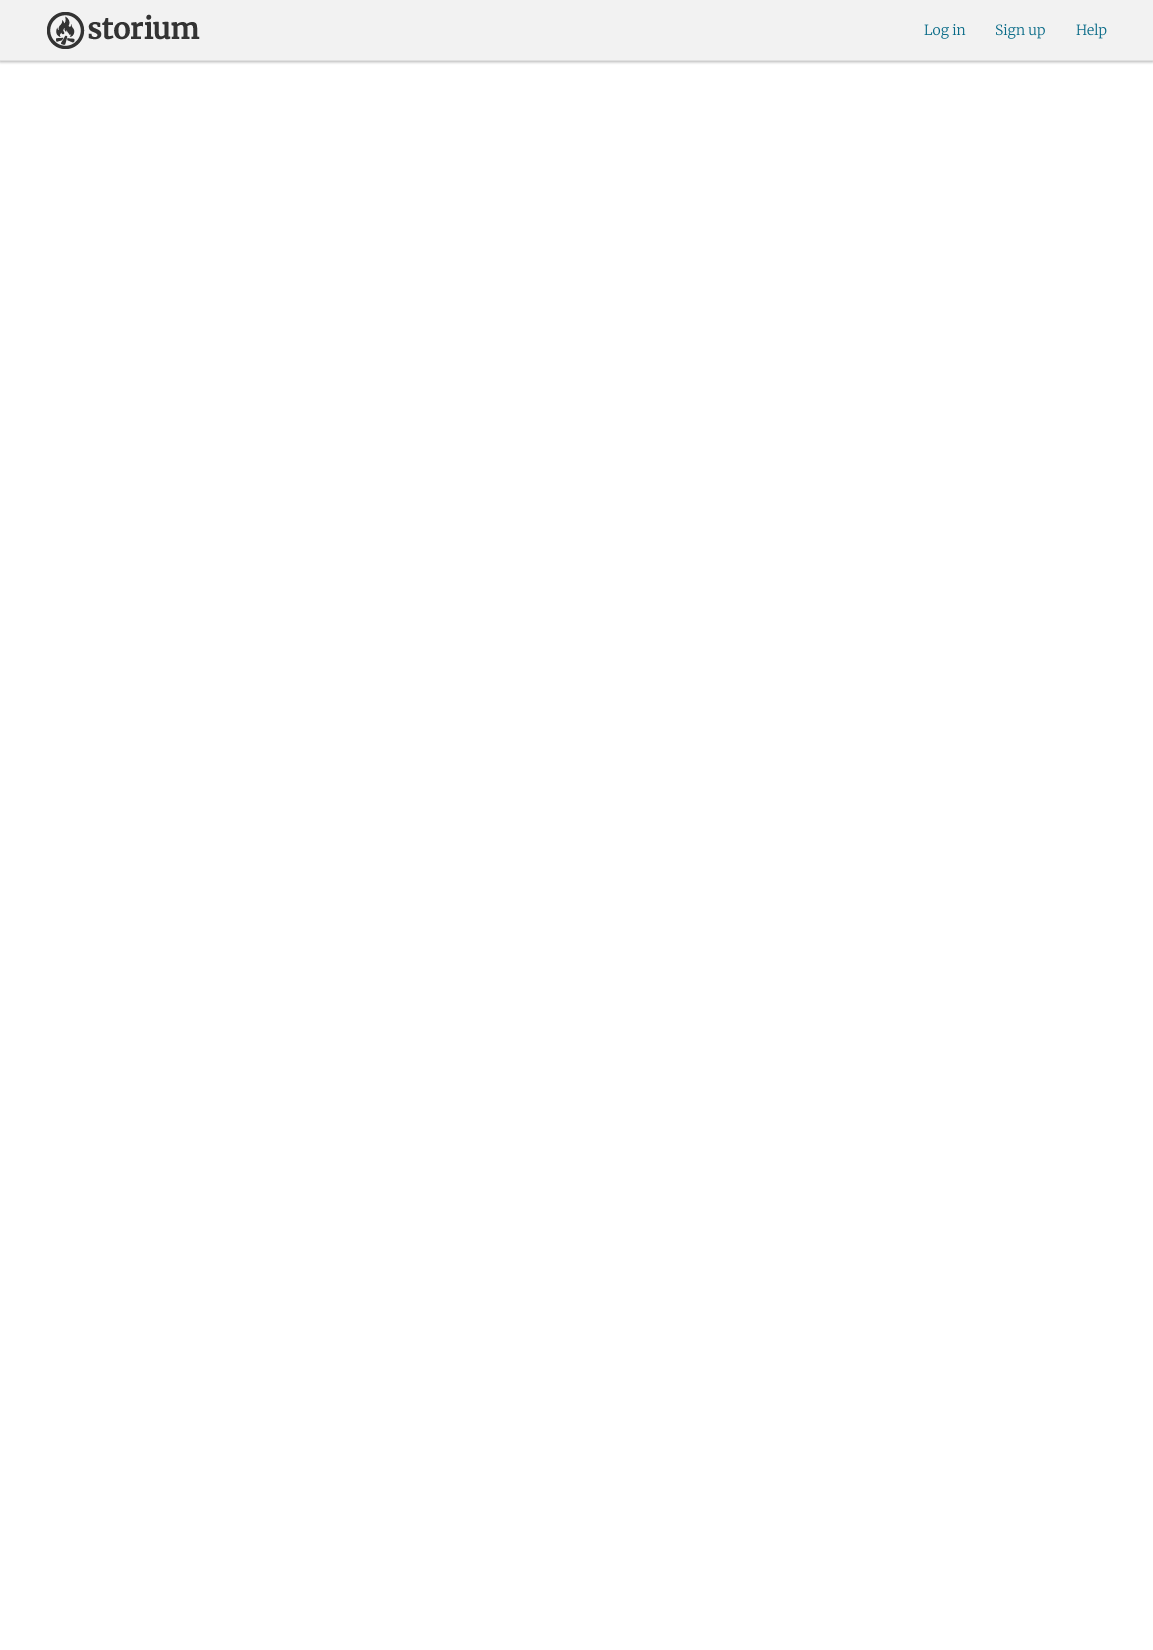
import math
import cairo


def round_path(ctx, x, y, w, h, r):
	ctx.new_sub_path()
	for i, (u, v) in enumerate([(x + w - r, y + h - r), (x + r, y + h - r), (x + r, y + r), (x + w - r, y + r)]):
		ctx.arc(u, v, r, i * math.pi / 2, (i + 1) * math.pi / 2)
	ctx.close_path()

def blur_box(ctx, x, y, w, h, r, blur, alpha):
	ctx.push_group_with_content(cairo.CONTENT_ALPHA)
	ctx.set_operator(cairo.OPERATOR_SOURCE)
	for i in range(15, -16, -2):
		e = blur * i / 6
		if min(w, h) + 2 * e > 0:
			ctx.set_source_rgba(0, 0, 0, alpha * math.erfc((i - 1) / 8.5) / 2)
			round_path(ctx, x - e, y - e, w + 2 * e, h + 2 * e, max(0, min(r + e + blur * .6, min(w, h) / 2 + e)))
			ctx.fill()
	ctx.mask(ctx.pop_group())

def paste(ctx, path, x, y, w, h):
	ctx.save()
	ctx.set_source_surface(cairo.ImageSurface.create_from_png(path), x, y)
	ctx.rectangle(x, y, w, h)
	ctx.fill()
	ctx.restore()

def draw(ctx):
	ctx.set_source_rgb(1, 1, 1)
	ctx.paint()
	ctx.set_source_rgb(0, 0, 0)
	blur_box(ctx, 0, 1, 1153, 61, 0, 1.5, 0.3)
	ctx.set_source_rgb(0.949, 0.949, 0.949)
	ctx.rectangle(0, 0, 1153, 60)
	ctx.fill()
	ctx.set_source_rgb(0.878, 0.878, 0.878)
	ctx.rectangle(0, 60, 1153, 1)
	ctx.fill()
	paste(ctx, 'media/1.png', 47, 12, 153, 37)
	ctx.select_font_face('Merriweather Light')
	ctx.set_font_size(14)
	ctx.set_source_rgb(0.031, 0.416, 0.529)
	for x, y, s in [
		(924, 35, 'Log in'),
		(995, 35, 'Sign up'),
		(1076, 35, 'Help'),
	]:
		ctx.move_to(x, y)
		ctx.show_text(s)


surface = cairo.ImageSurface(cairo.FORMAT_RGB24, 1153, 1650)
ctx = cairo.Context(surface)
options = cairo.FontOptions()
options.set_hint_metrics(cairo.HINT_METRICS_OFF)
options.set_hint_style(cairo.HINT_STYLE_NONE)
ctx.set_font_options(options)
ctx.set_miter_limit(4)
draw(ctx)
surface.write_to_png('image.png')
